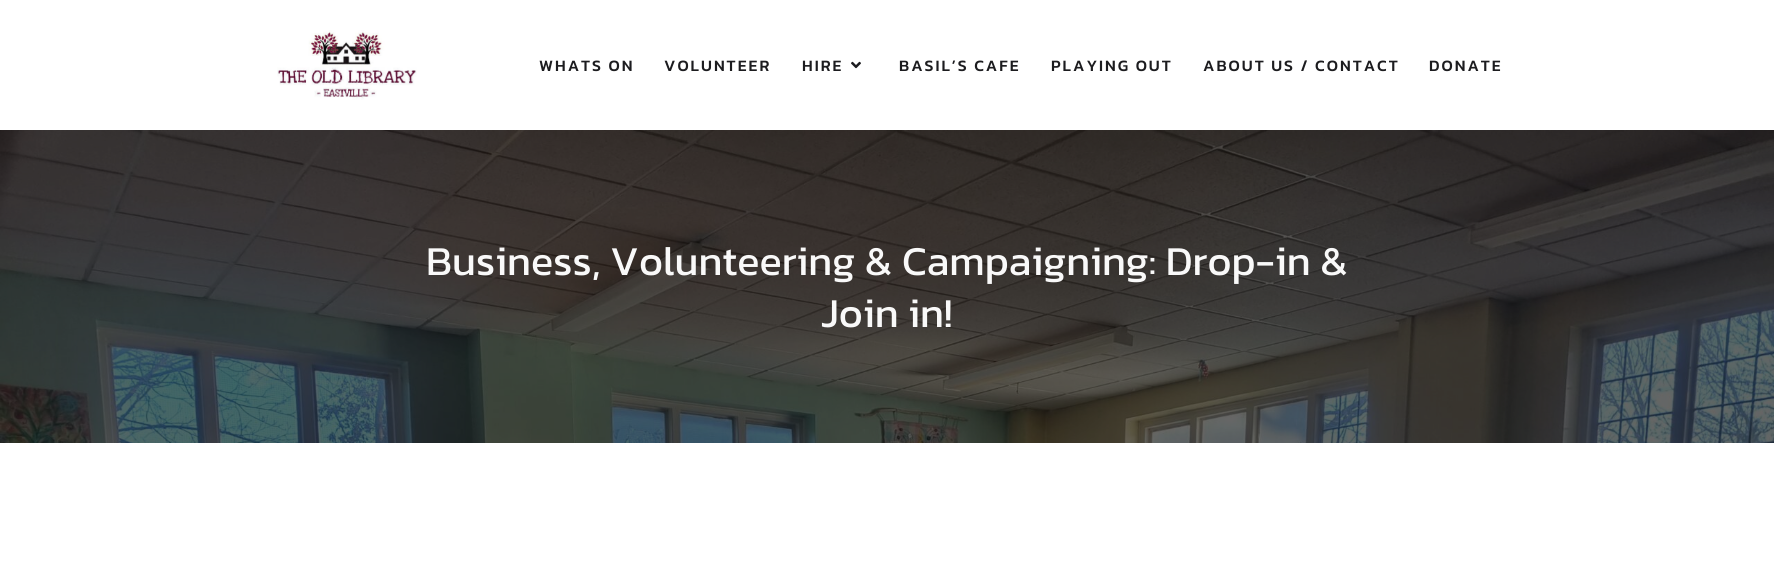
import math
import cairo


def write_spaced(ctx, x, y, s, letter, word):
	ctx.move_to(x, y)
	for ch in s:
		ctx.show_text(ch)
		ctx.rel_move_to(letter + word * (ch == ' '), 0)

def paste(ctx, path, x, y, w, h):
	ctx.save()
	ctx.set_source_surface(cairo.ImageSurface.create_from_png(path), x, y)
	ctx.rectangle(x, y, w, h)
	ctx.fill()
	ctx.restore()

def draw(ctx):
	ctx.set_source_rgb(1, 1, 1)
	ctx.paint()
	paste(ctx, 'media/1.png', 277, 30, 140, 70)
	ctx.select_font_face('Kanit Medium')
	ctx.set_font_size(16)
	ctx.set_source_rgb(0.11, 0.11, 0.122)
	for x, y, s in [
		(539, 71, 'WHATS ON'),
		(664, 71, 'VOLUNTEER'),
		(802, 71, 'HIRE'),
	]:
		write_spaced(ctx, x, y, s, 2, 0)
	paste(ctx, 'media/2.png', 851, 61, 10, 8)
	for x, y, s in [
		(899, 71, 'BASIL’S CAFE'),
		(1051, 71, 'PLAYING OUT'),
		(1203, 71, 'ABOUT US / CONTACT'),
		(1429, 71, 'DONATE'),
	]:
		write_spaced(ctx, x, y, s, 2, 0)
	paste(ctx, 'media/3.png', 0, 130, 1774, 313)
	ctx.select_font_face('Kanit')
	ctx.set_font_size(41.4)
	ctx.set_source_rgb(0.976, 0.976, 0.976)
	ctx.move_to(426, 275)
	ctx.show_text('Business, Volunteering & Campaigning: Drop-in &')
	ctx.move_to(821, 327)
	ctx.show_text('Join in!')


surface = cairo.ImageSurface(cairo.FORMAT_RGB24, 1774, 578)
ctx = cairo.Context(surface)
options = cairo.FontOptions()
options.set_hint_metrics(cairo.HINT_METRICS_OFF)
options.set_hint_style(cairo.HINT_STYLE_NONE)
ctx.set_font_options(options)
ctx.set_miter_limit(4)
draw(ctx)
surface.write_to_png('image.png')
